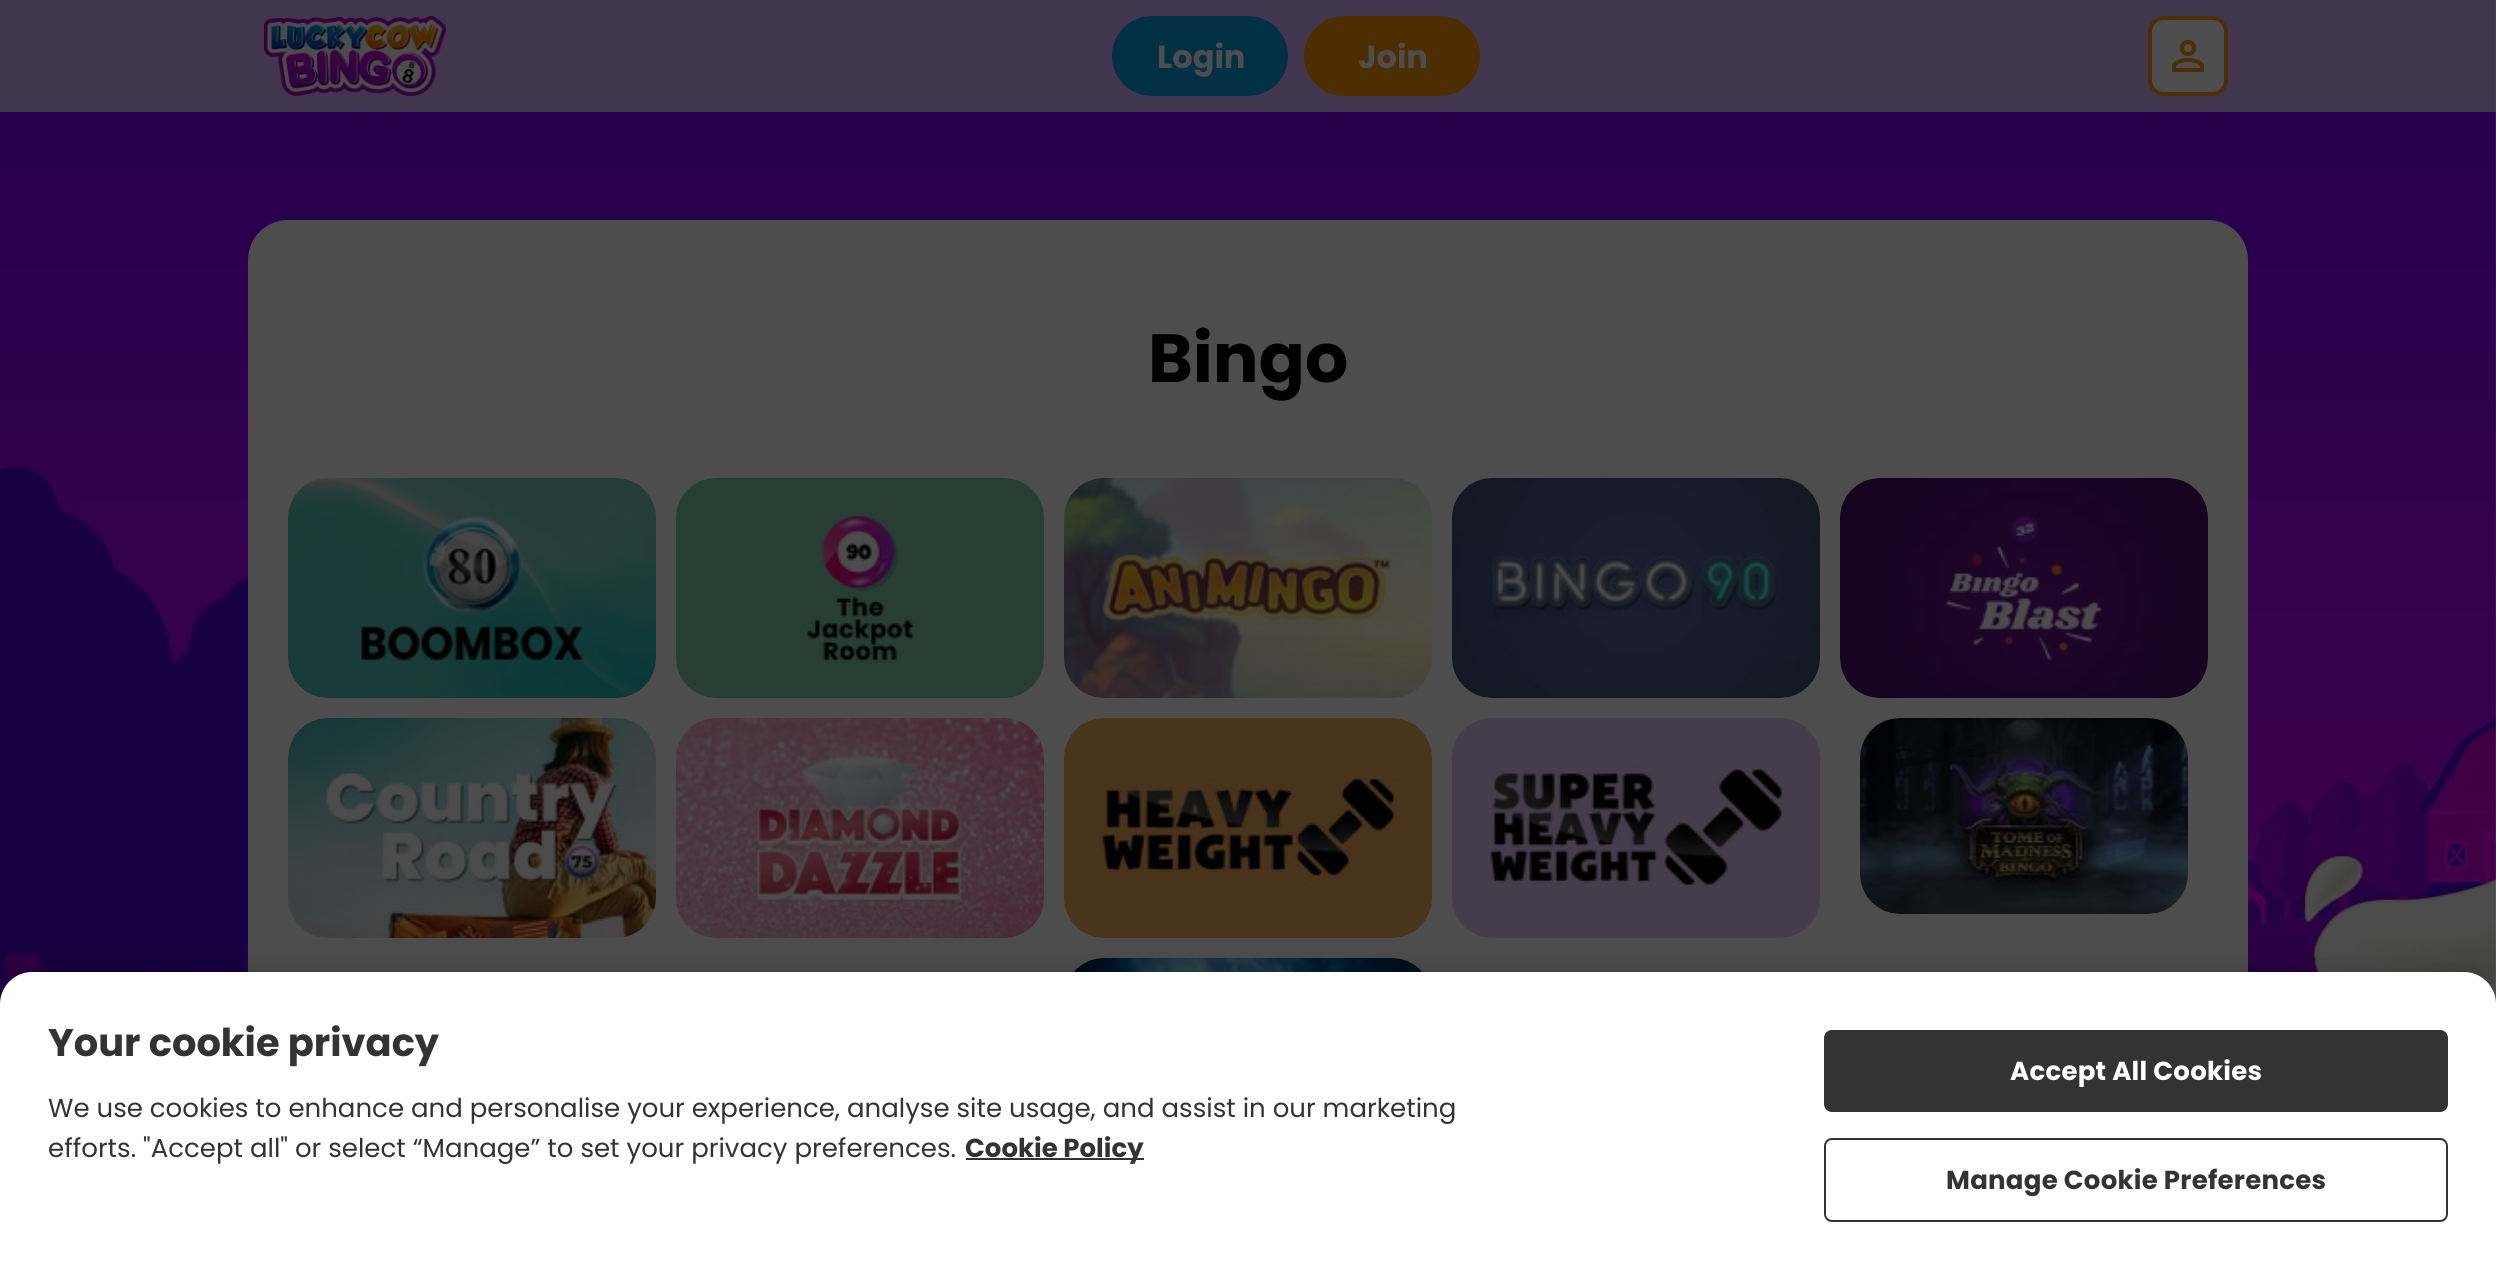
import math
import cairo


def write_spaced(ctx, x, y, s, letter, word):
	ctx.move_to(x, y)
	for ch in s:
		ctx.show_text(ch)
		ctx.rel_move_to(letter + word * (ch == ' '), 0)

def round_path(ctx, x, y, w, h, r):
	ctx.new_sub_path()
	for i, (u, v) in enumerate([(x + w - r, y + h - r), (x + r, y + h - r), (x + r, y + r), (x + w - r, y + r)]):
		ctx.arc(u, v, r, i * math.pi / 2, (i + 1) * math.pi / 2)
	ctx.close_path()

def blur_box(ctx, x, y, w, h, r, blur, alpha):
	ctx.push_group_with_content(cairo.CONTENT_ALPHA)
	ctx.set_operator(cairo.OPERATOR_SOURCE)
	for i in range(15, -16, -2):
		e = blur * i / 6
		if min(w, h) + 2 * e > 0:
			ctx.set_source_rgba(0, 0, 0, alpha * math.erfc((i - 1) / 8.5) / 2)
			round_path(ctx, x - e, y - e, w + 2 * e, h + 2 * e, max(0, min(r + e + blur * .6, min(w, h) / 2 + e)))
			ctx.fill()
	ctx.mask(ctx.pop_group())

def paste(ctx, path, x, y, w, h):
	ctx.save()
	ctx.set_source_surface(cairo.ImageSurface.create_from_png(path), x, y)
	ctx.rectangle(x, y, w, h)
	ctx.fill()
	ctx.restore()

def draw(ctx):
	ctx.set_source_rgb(1, 1, 1)
	ctx.paint()
	paste(ctx, 'media/1.png', 0, 0, 2496, 1004)
	ctx.set_source_rgba(0.302, 0.302, 0.302, 0.7)
	ctx.rectangle(0, 0, 2496, 112)
	ctx.fill()
	paste(ctx, 'media/2.png', 264, 16, 182, 80)
	ctx.set_source_rgb(0.004, 0.188, 0.271)
	round_path(ctx, 1112, 16, 176, 80, 40)
	ctx.fill()
	ctx.select_font_face('Poppins', cairo.FONT_SLANT_NORMAL, cairo.FONT_WEIGHT_BOLD)
	ctx.set_font_size(32)
	ctx.set_source_rgb(0.302, 0.302, 0.302)
	ctx.move_to(1157, 68)
	ctx.show_text('Login')
	ctx.set_source_rgb(0.302, 0.18, 0)
	round_path(ctx, 1304, 16, 176, 80, 40)
	ctx.fill()
	ctx.set_source_rgb(0.302, 0.302, 0.302)
	ctx.move_to(1358, 68)
	ctx.show_text('Join')
	ctx.set_source_rgb(0.302, 0.18, 0)
	round_path(ctx, 2148, 16, 80, 80, 16)
	ctx.fill()
	ctx.set_source_rgb(0.302, 0.302, 0.302)
	round_path(ctx, 2152, 20, 72, 72, 12)
	ctx.fill()
	paste(ctx, 'media/3.png', 2172, 40, 32, 32)
	round_path(ctx, 248, 220, 2000, 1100, 40)
	ctx.fill()
	ctx.set_font_size(68)
	ctx.set_source_rgb(0, 0, 0)
	ctx.move_to(1148, 382)
	ctx.show_text('Bingo')
	paste(ctx, 'media/4.png', 288, 478, 368, 220)
	paste(ctx, 'media/5.png', 676, 478, 368, 220)
	paste(ctx, 'media/6.png', 1064, 478, 368, 220)
	paste(ctx, 'media/7.png', 1452, 478, 368, 220)
	paste(ctx, 'media/8.png', 1840, 478, 368, 220)
	paste(ctx, 'media/9.png', 288, 718, 368, 220)
	paste(ctx, 'media/10.png', 676, 718, 368, 220)
	paste(ctx, 'media/11.png', 1064, 718, 368, 220)
	paste(ctx, 'media/12.png', 1452, 718, 368, 220)
	paste(ctx, 'media/13.png', 1860, 718, 328, 196)
	paste(ctx, 'media/14.png', 1074, 958, 348, 14)
	ctx.set_source_rgb(0, 0, 0)
	blur_box(ctx, 0, 972, 2496, 308, 32, 18, 0.2)
	ctx.set_source_rgb(1, 1, 1)
	ctx.new_path()
	ctx.move_to(32, 972)
	ctx.line_to(2464, 972)
	ctx.curve_to(2481.5, 972, 2496, 986.5, 2496, 1004)
	ctx.line_to(2496, 1280)
	ctx.line_to(0, 1280)
	ctx.line_to(0, 1004)
	ctx.curve_to(0, 986.5, 14.5, 972, 32, 972)
	ctx.close_path()
	ctx.fill()
	ctx.set_font_size(38.4)
	ctx.set_source_rgb(0.2, 0.2, 0.2)
	ctx.move_to(48, 1056)
	ctx.show_text('Your cookie privacy')
	ctx.select_font_face('Poppins')
	ctx.set_font_size(26.02)
	ctx.move_to(48, 1117)
	ctx.show_text('We use cookies to enhance and personalise your experience, analyse site usage, and assist in our marketing')
	ctx.move_to(48, 1157)
	ctx.show_text('efforts. "Accept all" or select “Manage” to set your privacy preferences.')
	ctx.rectangle(966, 1158, 178, 2)
	ctx.fill()
	ctx.select_font_face('Poppins', cairo.FONT_SLANT_NORMAL, cairo.FONT_WEIGHT_BOLD)
	ctx.move_to(965, 1157)
	ctx.show_text('Cookie Policy')
	round_path(ctx, 1825, 1031, 622, 80, 7)
	ctx.fill_preserve()
	ctx.stroke()
	ctx.set_source_rgb(1, 1, 1)
	write_spaced(ctx, 2010, 1080, 'Accept All Cookies', 0.25, 0)
	round_path(ctx, 1825, 1139, 622, 82, 7)
	ctx.set_source_rgb(0.2, 0.2, 0.2)
	ctx.stroke()
	write_spaced(ctx, 1946, 1189, 'Manage Cookie Preferences', 0.25, 0)


surface = cairo.ImageSurface(cairo.FORMAT_RGB24, 2496, 1280)
ctx = cairo.Context(surface)
options = cairo.FontOptions()
options.set_hint_metrics(cairo.HINT_METRICS_OFF)
options.set_hint_style(cairo.HINT_STYLE_NONE)
ctx.set_font_options(options)
ctx.set_miter_limit(4)
draw(ctx)
surface.write_to_png('image.png')
